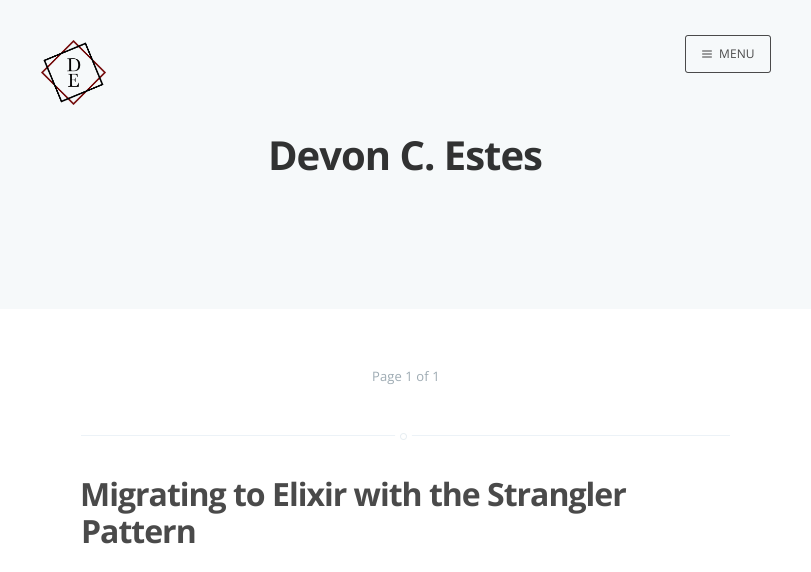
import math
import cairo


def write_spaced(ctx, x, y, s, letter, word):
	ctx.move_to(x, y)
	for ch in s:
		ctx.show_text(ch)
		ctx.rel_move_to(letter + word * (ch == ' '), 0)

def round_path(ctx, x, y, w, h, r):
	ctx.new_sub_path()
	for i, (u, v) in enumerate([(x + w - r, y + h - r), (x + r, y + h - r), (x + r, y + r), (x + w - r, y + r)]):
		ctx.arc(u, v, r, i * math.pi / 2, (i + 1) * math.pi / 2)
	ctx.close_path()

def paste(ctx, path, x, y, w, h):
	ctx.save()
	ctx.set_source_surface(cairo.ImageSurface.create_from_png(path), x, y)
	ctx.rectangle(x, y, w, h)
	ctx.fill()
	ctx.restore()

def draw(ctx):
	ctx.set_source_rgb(1, 1, 1)
	ctx.paint()
	ctx.set_source_rgb(0.961, 0.973, 0.98)
	ctx.rectangle(0, 0, 811, 309)
	ctx.fill()
	paste(ctx, 'media/1.png', 41, 40, 65, 65)
	round_path(ctx, 685.5, 35.5, 85, 37, 2.5)
	ctx.set_source_rgb(0.29, 0.29, 0.29)
	ctx.set_line_width(1)
	ctx.stroke()
	paste(ctx, 'media/2.png', 702, 50, 10, 8)
	ctx.select_font_face('Open Sans')
	ctx.set_font_size(12)
	write_spaced(ctx, 719, 58, 'MENU', 0.1, 0)
	ctx.select_font_face('Open Sans', cairo.FONT_SLANT_NORMAL, cairo.FONT_WEIGHT_BOLD)
	ctx.set_font_size(40)
	ctx.set_source_rgb(0.192, 0.196, 0.196)
	write_spaced(ctx, 268, 170, 'Devon C. Estes', -1, 0)
	ctx.set_source_rgb(0.922, 0.949, 0.965)
	ctx.rectangle(81, 435, 649, 1)
	ctx.fill()
	ctx.select_font_face('Open Sans')
	ctx.set_font_size(13)
	ctx.set_source_rgb(0.62, 0.671, 0.702)
	write_spaced(ctx, 372, 381, 'Page 1 of 1', 0.1, 0)
	ctx.new_path()
	ctx.arc(403.5, 436.5, 6, 0, 2 * math.pi)
	ctx.set_source_rgb(1, 1, 1)
	ctx.set_line_width(5)
	ctx.stroke()
	ctx.arc(403.5, 436.5, 3, 0, 2 * math.pi)
	ctx.fill_preserve()
	ctx.set_source_rgb(0.906, 0.933, 0.949)
	ctx.set_line_width(1)
	ctx.stroke()
	ctx.select_font_face('Open Sans', cairo.FONT_SLANT_NORMAL, cairo.FONT_WEIGHT_BOLD)
	ctx.set_font_size(32)
	ctx.set_source_rgb(0.29, 0.29, 0.29)
	write_spaced(ctx, 80, 506, 'Migrating to Elixir with the Strangler', -1, 0)
	write_spaced(ctx, 81, 543, 'Pattern', -1, 0)


surface = cairo.ImageSurface(cairo.FORMAT_RGB24, 811, 572)
ctx = cairo.Context(surface)
options = cairo.FontOptions()
options.set_hint_metrics(cairo.HINT_METRICS_OFF)
options.set_hint_style(cairo.HINT_STYLE_NONE)
ctx.set_font_options(options)
ctx.set_miter_limit(4)
draw(ctx)
surface.write_to_png('image.png')
